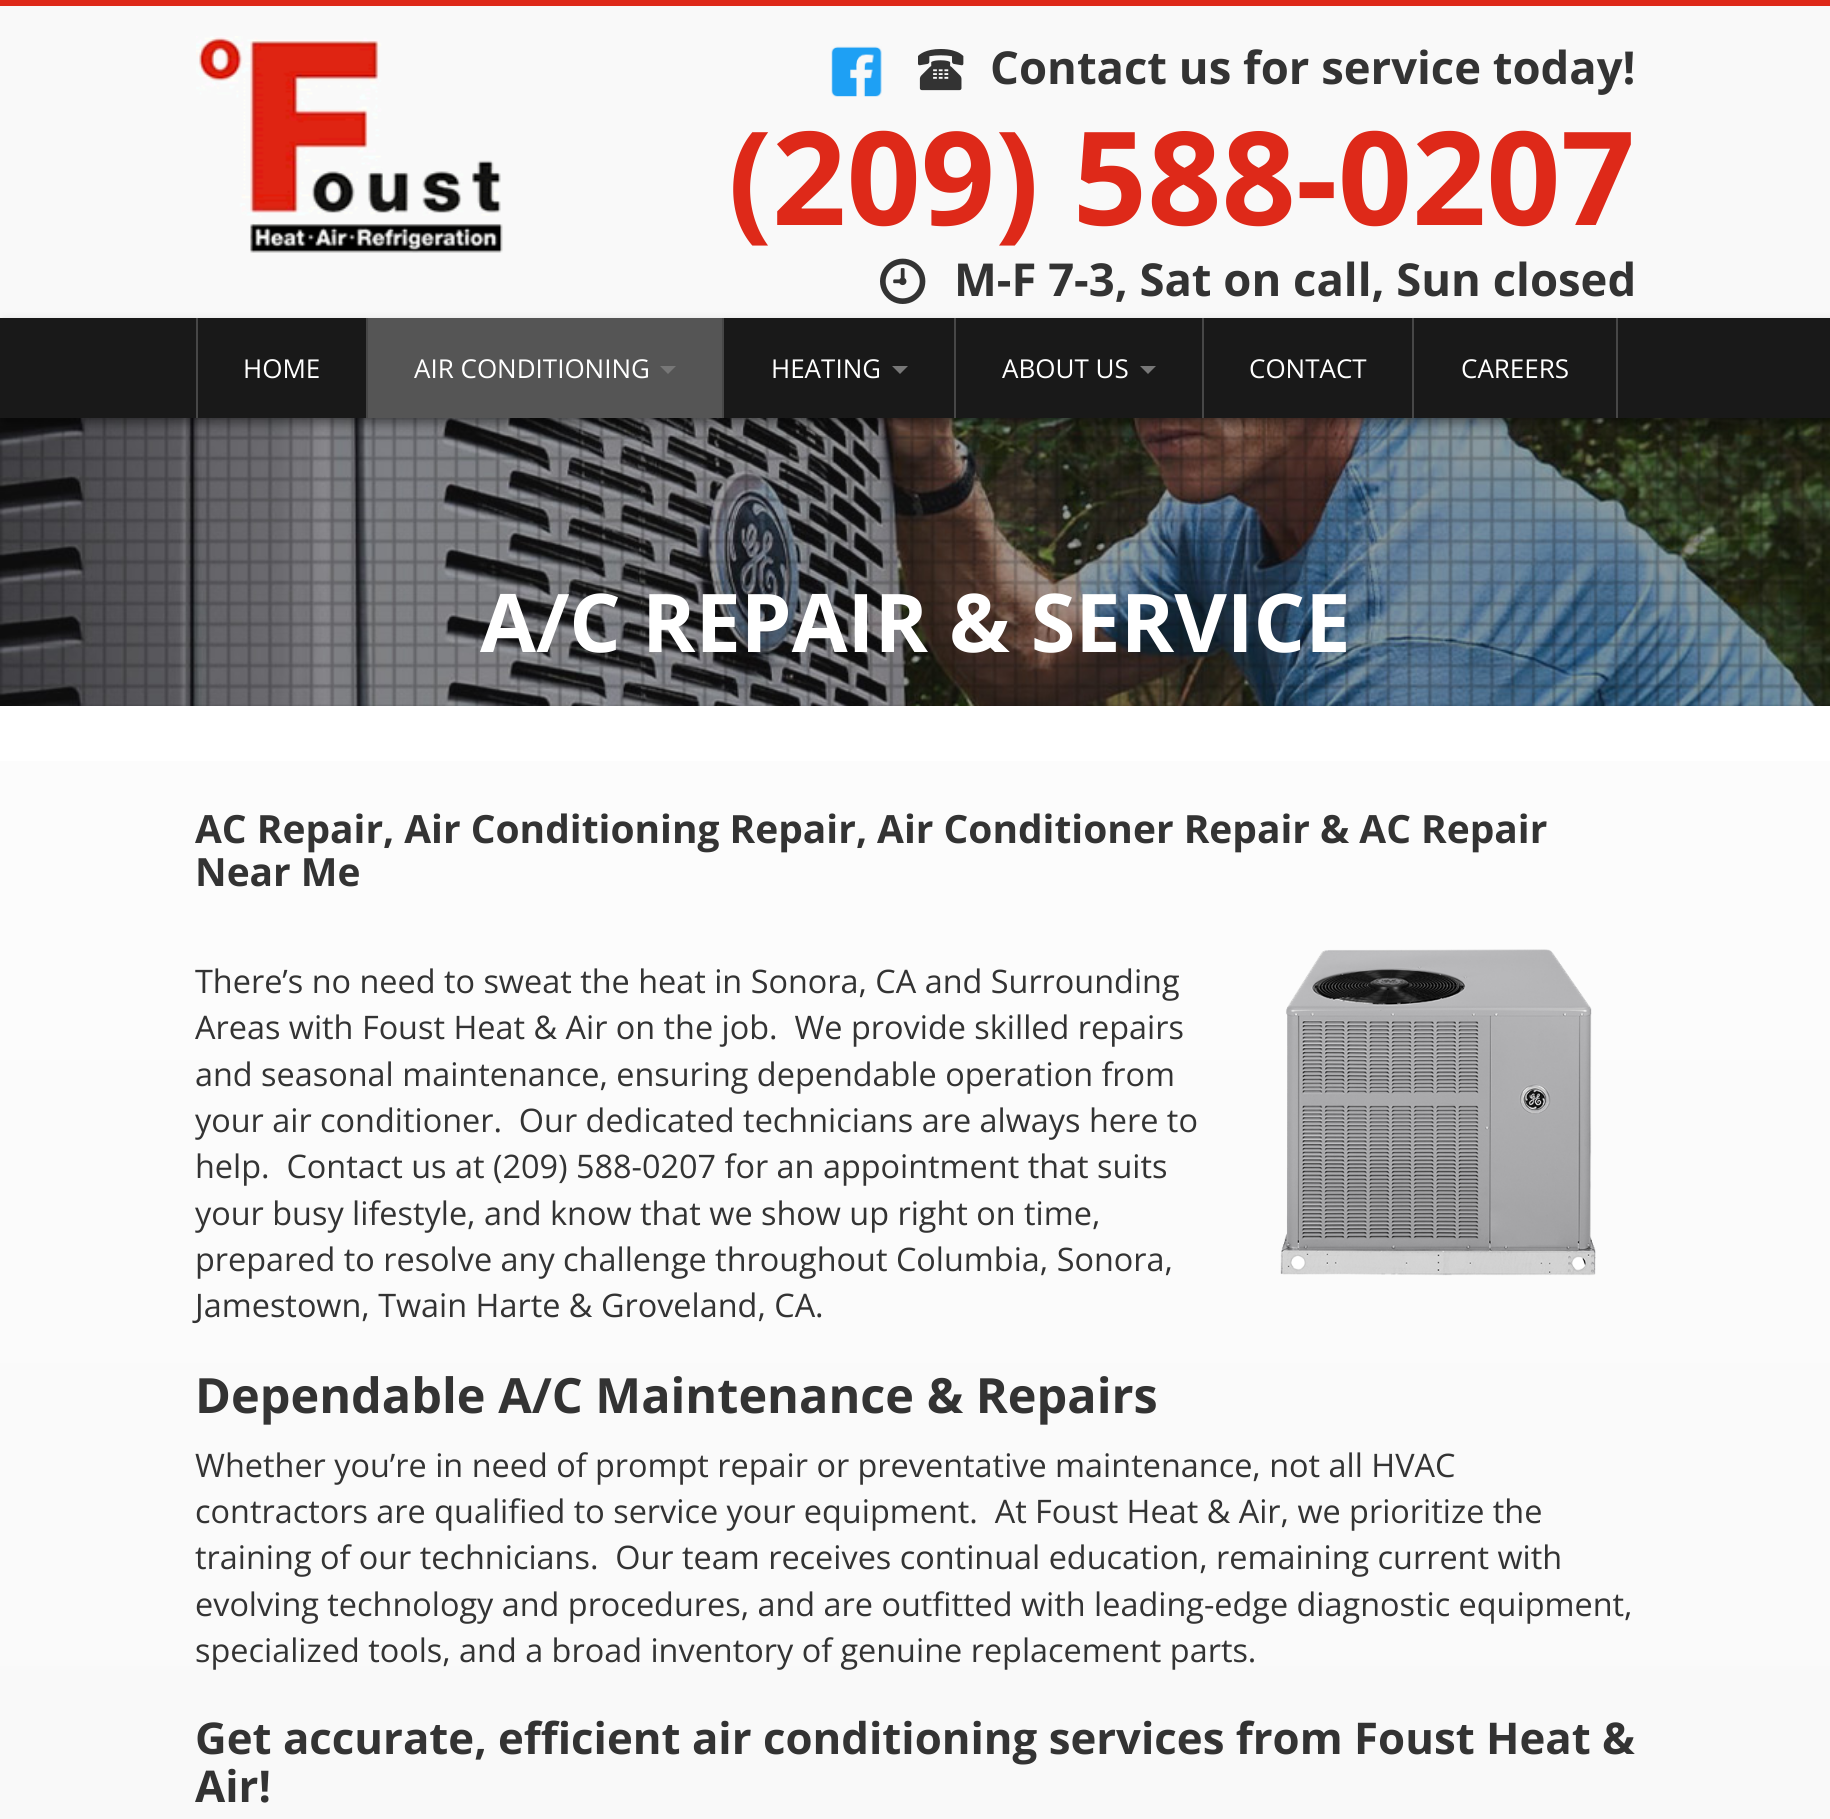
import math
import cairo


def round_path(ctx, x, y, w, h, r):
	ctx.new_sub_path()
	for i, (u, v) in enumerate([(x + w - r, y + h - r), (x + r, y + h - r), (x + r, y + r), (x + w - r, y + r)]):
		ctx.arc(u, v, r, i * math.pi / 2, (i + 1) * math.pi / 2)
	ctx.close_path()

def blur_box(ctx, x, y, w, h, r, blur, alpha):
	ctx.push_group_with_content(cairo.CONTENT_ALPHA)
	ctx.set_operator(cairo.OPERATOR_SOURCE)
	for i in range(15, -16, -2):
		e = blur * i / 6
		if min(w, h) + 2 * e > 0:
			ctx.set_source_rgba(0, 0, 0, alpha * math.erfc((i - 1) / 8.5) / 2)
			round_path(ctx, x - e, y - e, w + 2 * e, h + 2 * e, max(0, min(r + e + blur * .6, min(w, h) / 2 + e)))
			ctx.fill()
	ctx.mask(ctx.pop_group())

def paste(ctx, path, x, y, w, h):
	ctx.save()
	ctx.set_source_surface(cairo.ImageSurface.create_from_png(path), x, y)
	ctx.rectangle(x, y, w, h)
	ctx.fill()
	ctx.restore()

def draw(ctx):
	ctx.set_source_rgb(1, 1, 1)
	ctx.paint()
	gradient = cairo.LinearGradient(915, 0, 915, 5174)
	gradient.add_color_stop_rgba(0, 1, 1, 1, 1)
	gradient.add_color_stop_rgba(1, 0.933, 0.933, 0.933, 1)
	ctx.set_source(gradient)
	ctx.rectangle(0, 761, 1830, 1058)
	ctx.fill()
	ctx.set_source_rgb(0.973, 0.973, 0.973)
	ctx.rectangle(0, 6, 1830, 312)
	ctx.fill()
	ctx.set_source_rgb(0.871, 0.161, 0.098)
	ctx.rectangle(0, 0, 1830, 6)
	ctx.fill()
	paste(ctx, 'media/1.png', 196, 36, 307, 217)
	paste(ctx, 'media/2.png', 831, 46, 51, 51)
	paste(ctx, 'media/3.png', 918, 49, 46, 42)
	ctx.select_font_face('Open Sans', cairo.FONT_SLANT_NORMAL, cairo.FONT_WEIGHT_BOLD)
	ctx.set_font_size(45.4)
	ctx.set_source_rgb(0.2, 0.2, 0.2)
	ctx.move_to(990, 84)
	ctx.show_text('Contact us for service today!')
	ctx.set_font_size(130)
	ctx.set_source_rgb(0.871, 0.161, 0.098)
	ctx.move_to(728, 225)
	ctx.show_text('(209) 588-0207')
	paste(ctx, 'media/4.png', 880, 258, 46, 46)
	ctx.set_font_size(45.4)
	ctx.set_source_rgb(0.2, 0.2, 0.2)
	ctx.move_to(954, 296)
	ctx.show_text('M-F 7-3, Sat on call, Sun closed')
	paste(ctx, 'media/5.png', 0, 418, 1830, 288)
	ctx.set_source_rgb(0, 0, 0)
	blur_box(ctx, 4, 324, 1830, 100, 0, 5, 0.4)
	ctx.set_source_rgb(0.098, 0.098, 0.098)
	ctx.rectangle(0, 318, 1830, 100)
	ctx.fill()
	ctx.set_source_rgb(0.278, 0.278, 0.278)
	ctx.rectangle(366, 318, 2, 100)
	ctx.rectangle(196, 318, 2, 100)
	ctx.fill()
	ctx.select_font_face('Open Sans')
	ctx.set_font_size(26)
	ctx.set_source_rgb(1, 1, 1)
	ctx.move_to(243, 378)
	ctx.show_text('HOME')
	ctx.set_source_rgb(0.278, 0.278, 0.278)
	ctx.rectangle(722, 318, 2, 100)
	ctx.fill()
	ctx.set_source_rgb(0.333, 0.333, 0.333)
	ctx.rectangle(368, 318, 354, 100)
	ctx.fill()
	ctx.set_source_rgb(1, 1, 1)
	ctx.move_to(414, 378)
	ctx.show_text('AIR CONDITIONING')
	ctx.set_source_rgb(0.467, 0.467, 0.467)
	ctx.new_path()
	ctx.move_to(660, 366)
	ctx.line_to(676, 366)
	ctx.line_to(668, 374)
	ctx.close_path()
	ctx.fill()
	ctx.set_source_rgb(0.278, 0.278, 0.278)
	ctx.rectangle(954, 318, 2, 100)
	ctx.fill()
	ctx.set_source_rgb(1, 1, 1)
	ctx.move_to(771, 378)
	ctx.show_text('HEATING')
	ctx.set_source_rgb(0.467, 0.467, 0.467)
	ctx.new_path()
	ctx.move_to(892, 366)
	ctx.line_to(908, 366)
	ctx.line_to(900, 374)
	ctx.close_path()
	ctx.fill()
	ctx.set_source_rgb(0.278, 0.278, 0.278)
	ctx.rectangle(1202, 318, 2, 100)
	ctx.fill()
	ctx.set_source_rgb(1, 1, 1)
	ctx.move_to(1002, 378)
	ctx.show_text('ABOUT US')
	ctx.set_source_rgb(0.467, 0.467, 0.467)
	ctx.new_path()
	ctx.move_to(1140, 366)
	ctx.line_to(1156, 366)
	ctx.line_to(1148, 374)
	ctx.close_path()
	ctx.fill()
	ctx.set_source_rgb(0.278, 0.278, 0.278)
	ctx.rectangle(1412, 318, 2, 100)
	ctx.fill()
	ctx.set_source_rgb(1, 1, 1)
	ctx.move_to(1249, 378)
	ctx.show_text('CONTACT')
	ctx.set_source_rgb(0.278, 0.278, 0.278)
	ctx.rectangle(1616, 318, 2, 100)
	ctx.fill()
	ctx.set_source_rgb(1, 1, 1)
	ctx.move_to(1461, 378)
	ctx.show_text('CAREERS')
	ctx.select_font_face('Open Sans', cairo.FONT_SLANT_NORMAL, cairo.FONT_WEIGHT_BOLD)
	ctx.set_font_size(81)
	ctx.move_to(480, 652)
	ctx.show_text('A/C REPAIR & SERVICE')
	ctx.set_font_size(38.9)
	ctx.set_source_rgb(0.2, 0.2, 0.2)
	ctx.move_to(195, 843)
	ctx.show_text('AC Repair, Air Conditioning Repair, Air Conditioner Repair & AC Repair')
	ctx.move_to(195, 886)
	ctx.show_text('Near Me')
	ctx.select_font_face('Open Sans')
	ctx.set_font_size(32.4)
	ctx.move_to(195, 993)
	ctx.show_text('There’s no need to sweat the heat in Sonora, CA and Surrounding')
	paste(ctx, 'media/6.png', 1280, 949, 316, 327)
	for x, y, s in [
		(195, 1039, 'Areas with Foust Heat & Air on the job.  We provide skilled repairs'),
		(195, 1086, 'and seasonal maintenance, ensuring dependable operation from'),
		(195, 1132, 'your air conditioner.  Our dedicated technicians are always here to'),
		(195, 1178, 'help.  Contact us at (209) 588-0207 for an appointment that suits'),
		(195, 1225, 'your busy lifestyle, and know that we show up right on time,'),
		(195, 1271, 'prepared to resolve any challenge throughout Columbia, Sonora,'),
		(195, 1317, 'Jamestown, Twain Harte & Groveland, CA.'),
	]:
		ctx.move_to(x, y)
		ctx.show_text(s)
	ctx.select_font_face('Open Sans', cairo.FONT_SLANT_NORMAL, cairo.FONT_WEIGHT_BOLD)
	ctx.set_font_size(48.6)
	ctx.move_to(195, 1413)
	ctx.show_text('Dependable A/C Maintenance & Repairs')
	ctx.select_font_face('Open Sans')
	ctx.set_font_size(32.4)
	for x, y, s in [
		(195, 1477, 'Whether you’re in need of prompt repair or preventative maintenance, not all HVAC'),
		(195, 1523, 'contractors are qualified to service your equipment.  At Foust Heat & Air, we prioritize the'),
		(195, 1569, 'training of our technicians.  Our team receives continual education, remaining current with'),
		(195, 1616, 'evolving technology and procedures, and are outfitted with leading-edge diagnostic equipment,'),
		(195, 1662, 'specialized tools, and a broad inventory of genuine replacement parts.'),
	]:
		ctx.move_to(x, y)
		ctx.show_text(s)
	ctx.select_font_face('Open Sans', cairo.FONT_SLANT_NORMAL, cairo.FONT_WEIGHT_BOLD)
	ctx.set_font_size(43.75)
	ctx.move_to(195, 1754)
	ctx.show_text('Get accurate, efficient air conditioning services from Foust Heat &')
	ctx.move_to(195, 1802)
	ctx.show_text('Air!')


surface = cairo.ImageSurface(cairo.FORMAT_RGB24, 1830, 1819)
ctx = cairo.Context(surface)
options = cairo.FontOptions()
options.set_hint_metrics(cairo.HINT_METRICS_OFF)
options.set_hint_style(cairo.HINT_STYLE_NONE)
ctx.set_font_options(options)
ctx.set_miter_limit(4)
draw(ctx)
surface.write_to_png('image.png')
